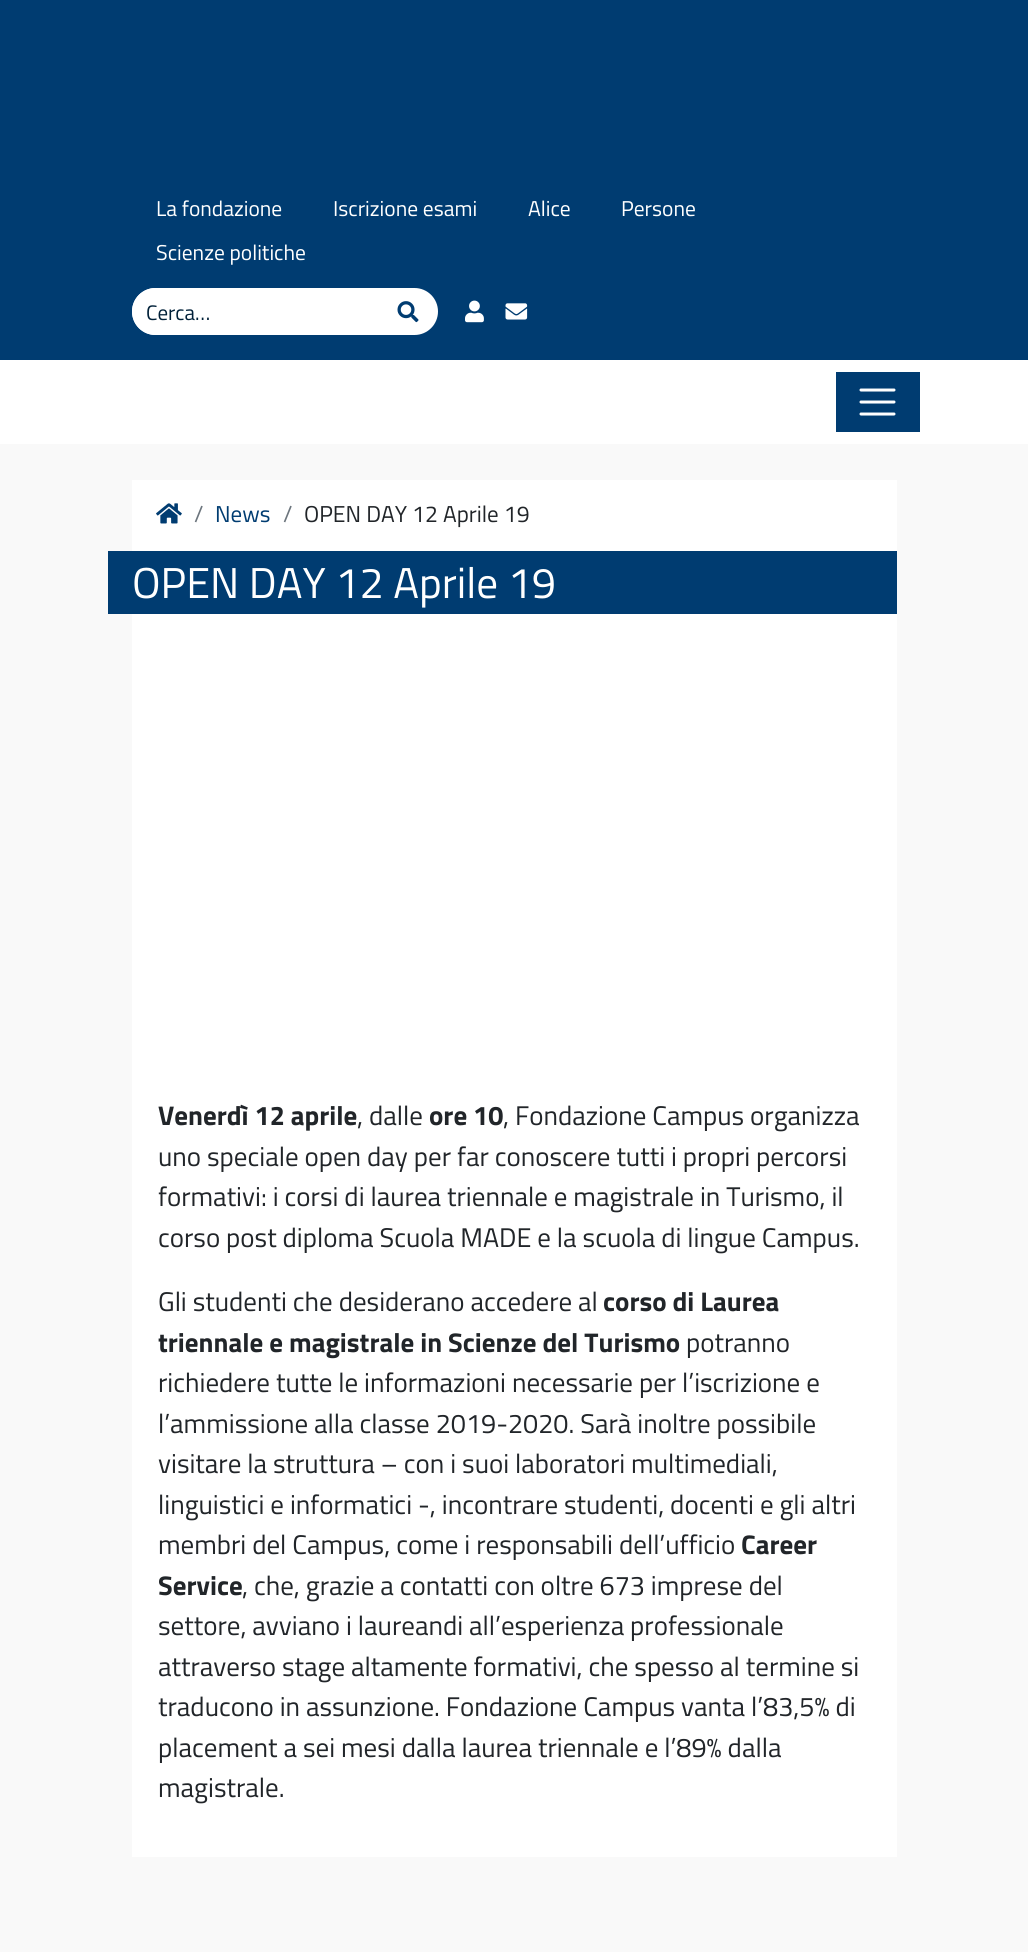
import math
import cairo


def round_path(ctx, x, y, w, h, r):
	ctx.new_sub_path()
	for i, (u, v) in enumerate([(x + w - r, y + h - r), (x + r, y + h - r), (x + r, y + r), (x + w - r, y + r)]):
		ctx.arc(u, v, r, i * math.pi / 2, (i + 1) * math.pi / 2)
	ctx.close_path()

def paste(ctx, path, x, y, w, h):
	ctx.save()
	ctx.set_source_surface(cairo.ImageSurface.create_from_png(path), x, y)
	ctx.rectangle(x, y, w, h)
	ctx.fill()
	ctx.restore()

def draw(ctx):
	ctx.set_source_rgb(0.976, 0.976, 0.976)
	ctx.paint()
	ctx.set_source_rgb(0, 0.235, 0.443)
	ctx.rectangle(0, 0, 1028, 360)
	ctx.fill()
	ctx.select_font_face('Titillium Web')
	ctx.set_font_size(21.5)
	ctx.set_source_rgb(1, 1, 1)
	for x, y, s in [
		(156, 216, 'La fondazione'),
		(333, 216, 'Iscrizione esami'),
		(528, 216, 'Alice'),
		(621, 216, 'Persone'),
		(156, 260, 'Scienze politiche'),
	]:
		ctx.move_to(x, y)
		ctx.show_text(s)
	round_path(ctx, 132, 288, 306, 47, 23.5)
	ctx.fill()
	ctx.new_path()
	ctx.move_to(155.5, 289)
	ctx.line_to(385, 289)
	ctx.line_to(385, 334)
	ctx.line_to(155.5, 334)
	ctx.curve_to(143, 334, 133, 324, 133, 311.5)
	ctx.curve_to(133, 299, 143, 289, 155.5, 289)
	ctx.close_path()
	ctx.stroke()
	ctx.set_font_size(21)
	ctx.set_source_rgb(0, 0.125, 0.22)
	ctx.move_to(146, 320)
	ctx.show_text('Cerca…')
	paste(ctx, 'media/1.png', 397, 301, 22, 22)
	paste(ctx, 'media/2.png', 465, 300, 19, 23)
	paste(ctx, 'media/3.png', 505, 303, 23, 17)
	ctx.set_source_rgb(1, 1, 1)
	ctx.rectangle(0, 360, 1028, 84)
	ctx.fill()
	ctx.set_source_rgb(0, 0.235, 0.443)
	ctx.rectangle(836, 372, 84, 60)
	ctx.fill()
	ctx.new_path()
	ctx.move_to(861, 390)
	ctx.line_to(894, 390)
	ctx.move_to(861, 402)
	ctx.line_to(894, 402)
	ctx.move_to(861, 414)
	ctx.line_to(894, 414)
	ctx.set_source_rgb(1, 1, 1)
	ctx.set_line_width(3)
	ctx.set_line_cap(cairo.LINE_CAP_ROUND)
	ctx.stroke()
	ctx.rectangle(132, 480, 765, 71)
	ctx.fill()
	paste(ctx, 'media/4.png', 156, 503, 26, 21)
	ctx.set_font_size(23)
	ctx.set_source_rgb(0.424, 0.459, 0.49)
	ctx.move_to(194, 522)
	ctx.show_text('/')
	ctx.set_source_rgb(0, 0.235, 0.443)
	ctx.move_to(215, 522)
	ctx.show_text('News')
	ctx.set_source_rgb(0.424, 0.459, 0.49)
	ctx.move_to(283, 522)
	ctx.show_text('/')
	ctx.set_source_rgb(0.129, 0.145, 0.161)
	ctx.move_to(304, 522)
	ctx.show_text('OPEN DAY 12 Aprile 19')
	ctx.set_source_rgb(0, 0.235, 0.443)
	ctx.rectangle(108, 551, 789, 63)
	ctx.fill()
	ctx.set_font_size(43.25)
	ctx.set_source_rgb(1, 1, 1)
	ctx.move_to(132, 598)
	ctx.show_text('OPEN DAY 12 Aprile 19')
	ctx.rectangle(132, 614, 765, 1243)
	ctx.fill()
	ctx.select_font_face('Titillium Web', cairo.FONT_SLANT_NORMAL, cairo.FONT_WEIGHT_BOLD)
	ctx.set_font_size(27)
	ctx.set_source_rgb(0.129, 0.145, 0.161)
	ctx.move_to(158, 1125)
	ctx.show_text('Venerdì 12 aprile')
	ctx.select_font_face('Titillium Web')
	ctx.move_to(357, 1125)
	ctx.show_text(', dalle')
	ctx.select_font_face('Titillium Web', cairo.FONT_SLANT_NORMAL, cairo.FONT_WEIGHT_BOLD)
	ctx.move_to(429, 1125)
	ctx.show_text('ore 10')
	ctx.select_font_face('Titillium Web')
	for x, y, s in [
		(503, 1125, ', Fondazione Campus organizza'),
		(158, 1166, 'uno speciale open day per far conoscere tutti i propri percorsi'),
		(158, 1206, 'formativi: i corsi di laurea triennale e magistrale in Turismo, il'),
		(158, 1247, 'corso post diploma Scuola MADE e la scuola di lingue Campus.'),
		(158, 1311, 'Gli studenti che desiderano accedere al'),
	]:
		ctx.move_to(x, y)
		ctx.show_text(s)
	ctx.select_font_face('Titillium Web', cairo.FONT_SLANT_NORMAL, cairo.FONT_WEIGHT_BOLD)
	ctx.move_to(603, 1311)
	ctx.show_text('corso di Laurea')
	ctx.move_to(158, 1352)
	ctx.show_text('triennale e magistrale in Scienze del Turismo')
	ctx.select_font_face('Titillium Web')
	for x, y, s in [
		(686, 1352, 'potranno'),
		(158, 1392, 'richiedere tutte le informazioni necessarie per l’iscrizione e'),
		(158, 1433, 'l’ammissione alla classe 2019-2020. Sarà inoltre possibile'),
		(158, 1473, 'visitare la struttura – con i suoi laboratori multimediali,'),
		(158, 1514, 'linguistici e informatici -, incontrare studenti, docenti e gli altri'),
		(158, 1554, 'membri del Campus, come i responsabili dell’ufficio'),
	]:
		ctx.move_to(x, y)
		ctx.show_text(s)
	ctx.select_font_face('Titillium Web', cairo.FONT_SLANT_NORMAL, cairo.FONT_WEIGHT_BOLD)
	ctx.move_to(741, 1554)
	ctx.show_text('Career')
	ctx.move_to(158, 1595)
	ctx.show_text('Service')
	ctx.select_font_face('Titillium Web')
	for x, y, s in [
		(242, 1595, ', che, grazie a contatti con oltre 673 imprese del'),
		(158, 1635, 'settore, avviano i laureandi all’esperienza professionale'),
		(158, 1676, 'attraverso stage altamente formativi, che spesso al termine si'),
		(158, 1716, 'traducono in assunzione. Fondazione Campus vanta l’83,5% di'),
		(158, 1757, 'placement a sei mesi dalla laurea triennale e l’89% dalla'),
		(158, 1797, 'magistrale.'),
	]:
		ctx.move_to(x, y)
		ctx.show_text(s)


surface = cairo.ImageSurface(cairo.FORMAT_RGB24, 1028, 1952)
ctx = cairo.Context(surface)
options = cairo.FontOptions()
options.set_hint_metrics(cairo.HINT_METRICS_OFF)
options.set_hint_style(cairo.HINT_STYLE_NONE)
ctx.set_font_options(options)
ctx.set_miter_limit(4)
draw(ctx)
surface.write_to_png('image.png')
